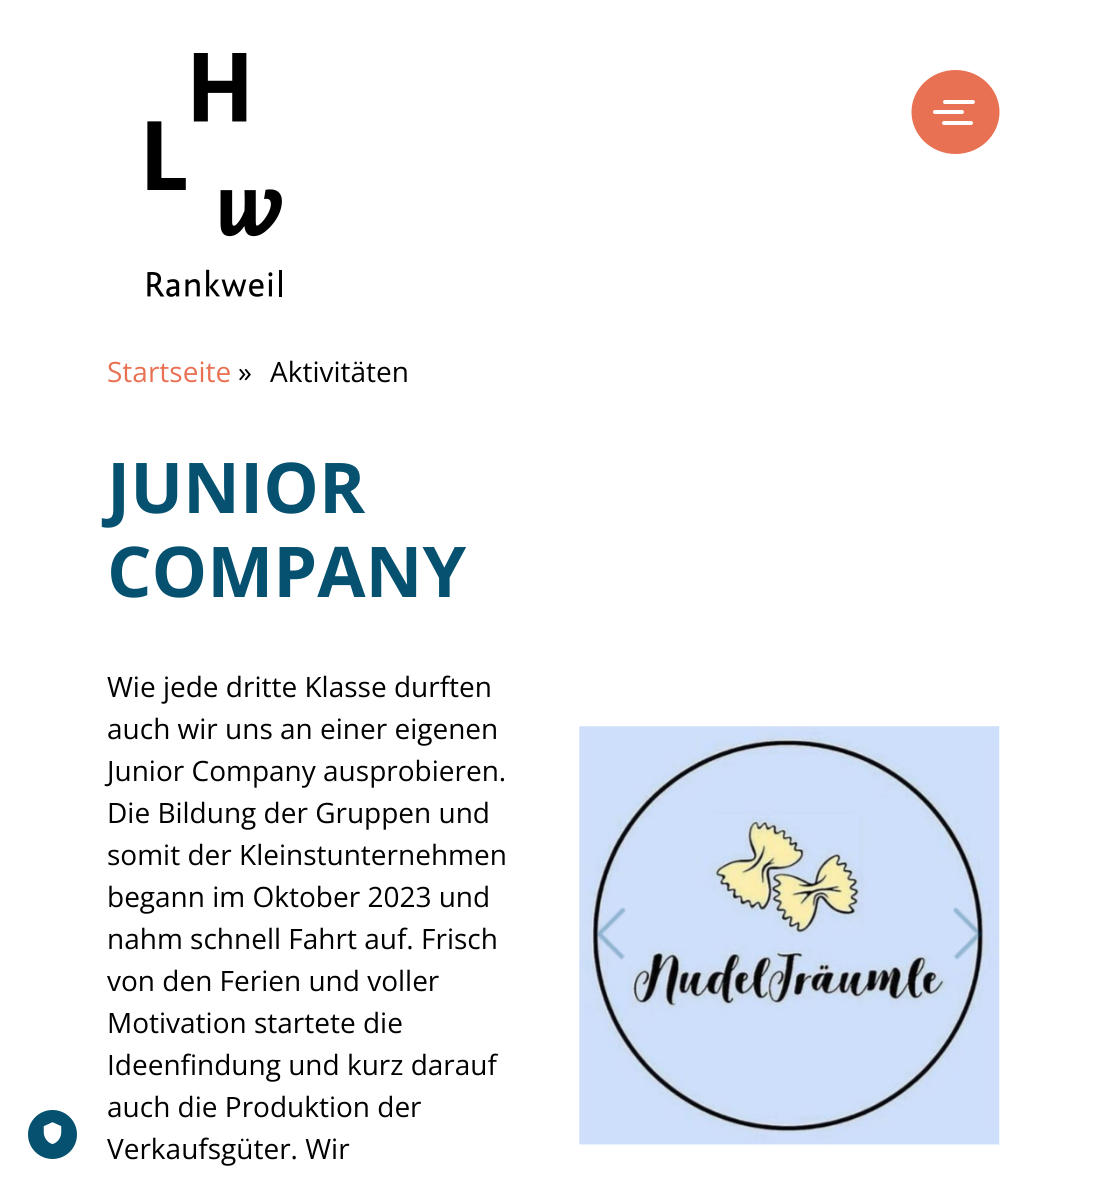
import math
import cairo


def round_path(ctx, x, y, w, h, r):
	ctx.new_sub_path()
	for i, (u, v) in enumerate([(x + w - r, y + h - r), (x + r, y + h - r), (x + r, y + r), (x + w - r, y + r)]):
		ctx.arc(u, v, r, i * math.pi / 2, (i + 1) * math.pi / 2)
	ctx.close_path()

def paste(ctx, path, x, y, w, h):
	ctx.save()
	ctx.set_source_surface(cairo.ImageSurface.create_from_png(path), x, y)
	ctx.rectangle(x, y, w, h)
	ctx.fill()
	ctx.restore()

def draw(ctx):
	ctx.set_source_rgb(1, 1, 1)
	ctx.paint()
	ctx.set_source_rgb(0.914, 0.443, 0.325)
	ctx.new_path()
	ctx.move_to(955.5, 70)
	ctx.curve_to(980, 70, 999.5, 89, 999.5, 112)
	ctx.curve_to(999.5, 135, 980, 154, 955.5, 154)
	ctx.curve_to(931, 154, 911.5, 135, 911.5, 112)
	ctx.curve_to(911.5, 89, 931, 70, 955.5, 70)
	ctx.close_path()
	ctx.fill()
	ctx.set_source_rgb(1, 1, 1)
	round_path(ctx, 943, 100, 32, 4, 2)
	ctx.fill()
	round_path(ctx, 933, 110, 31, 4, 2)
	ctx.fill()
	round_path(ctx, 942, 121, 31, 4, 2)
	ctx.fill()
	paste(ctx, 'media/1.png', 147, 53, 135, 244)
	ctx.select_font_face('Open Sans')
	ctx.set_font_size(28)
	ctx.set_source_rgb(0.914, 0.443, 0.325)
	ctx.move_to(107, 382)
	ctx.show_text('Startseite')
	ctx.set_source_rgb(0, 0, 0)
	ctx.move_to(238, 382)
	ctx.show_text('»')
	ctx.move_to(270, 382)
	ctx.show_text('Aktivitäten')
	ctx.set_source_rgb(0.02, 0.318, 0.435)
	ctx.new_path()
	ctx.arc(52.5, 1134.5, 24.5, 0, 2 * math.pi)
	ctx.fill()
	paste(ctx, 'media/2.png', 43, 1122, 19, 22)
	ctx.select_font_face('Open Sans', cairo.FONT_SLANT_NORMAL, cairo.FONT_WEIGHT_BOLD)
	ctx.set_font_size(70)
	ctx.move_to(107, 513)
	ctx.show_text('JUNIOR')
	ctx.move_to(107, 597)
	ctx.show_text('COMPANY')
	ctx.select_font_face('Open Sans')
	ctx.set_font_size(28)
	ctx.set_source_rgb(0, 0, 0)
	for x, y, s in [
		(107, 697, 'Wie jede dritte Klasse durften'),
		(107, 739, 'auch wir uns an einer eigenen'),
		(107, 781, 'Junior Company ausprobieren.'),
		(107, 823, 'Die Bildung der Gruppen und'),
		(107, 865, 'somit der Kleinstunternehmen'),
		(107, 907, 'begann im Oktober 2023 und'),
		(107, 949, 'nahm schnell Fahrt auf. Frisch'),
		(107, 991, 'von den Ferien und voller'),
		(107, 1033, 'Motivation startete die'),
		(107, 1075, 'Ideenfindung und kurz darauf'),
		(107, 1117, 'auch die Produktion der'),
		(107, 1159, 'Verkaufsgüter. Wir'),
	]:
		ctx.move_to(x, y)
		ctx.show_text(s)
	paste(ctx, 'media/3.png', 579, 726, 421, 420)
	paste(ctx, 'media/4.png', 596, 907, 30, 53)
	paste(ctx, 'media/5.png', 953, 907, 29, 53)


surface = cairo.ImageSurface(cairo.FORMAT_RGB24, 1105, 1185)
ctx = cairo.Context(surface)
options = cairo.FontOptions()
options.set_hint_metrics(cairo.HINT_METRICS_OFF)
options.set_hint_style(cairo.HINT_STYLE_NONE)
ctx.set_font_options(options)
ctx.set_miter_limit(4)
draw(ctx)
surface.write_to_png('image.png')
